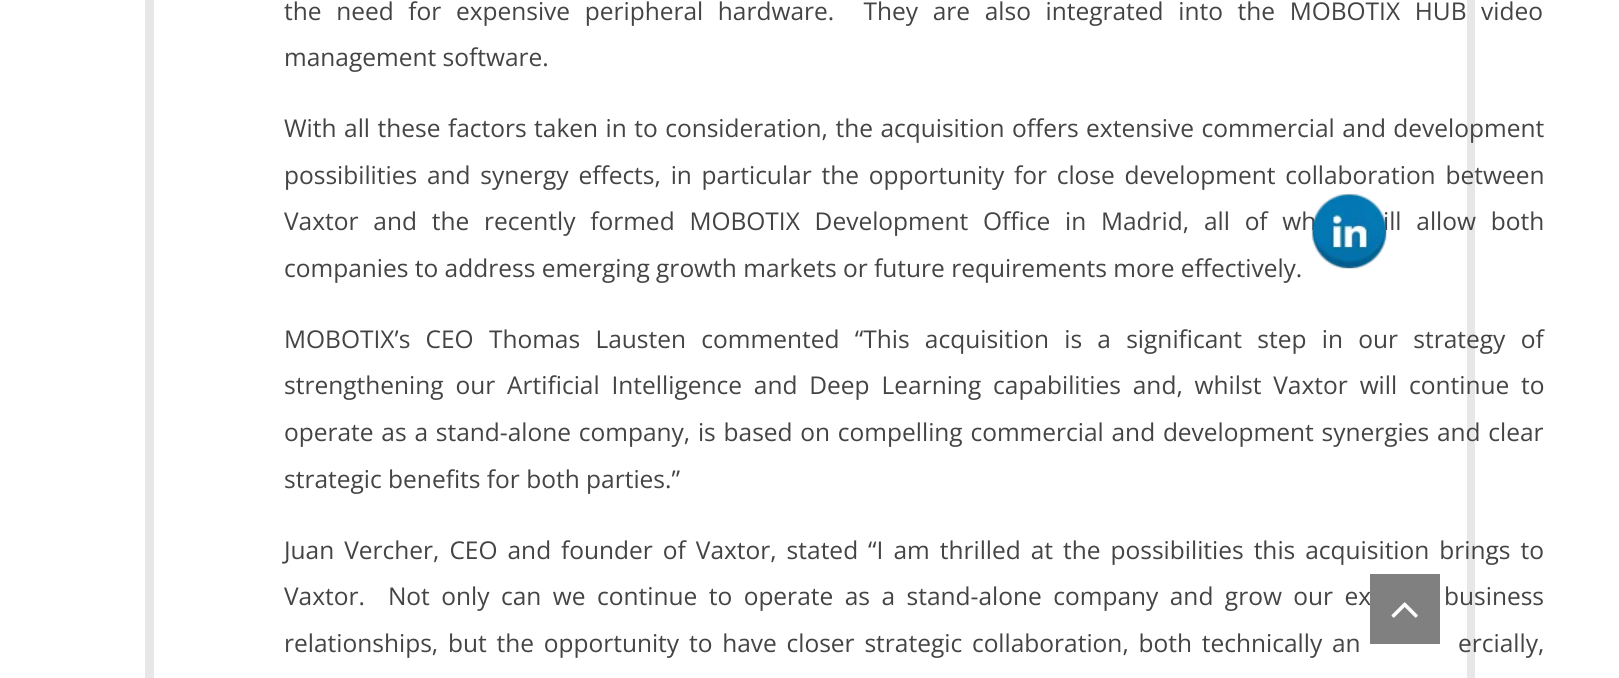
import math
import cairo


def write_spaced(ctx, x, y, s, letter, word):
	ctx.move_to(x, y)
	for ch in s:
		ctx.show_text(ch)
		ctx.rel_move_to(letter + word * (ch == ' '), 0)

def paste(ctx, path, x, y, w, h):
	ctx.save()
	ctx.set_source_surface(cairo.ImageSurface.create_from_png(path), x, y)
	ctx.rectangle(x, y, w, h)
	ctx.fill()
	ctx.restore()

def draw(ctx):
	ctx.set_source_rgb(1, 1, 1)
	ctx.paint()
	ctx.set_source_rgb(0.906, 0.906, 0.906)
	ctx.rectangle(1467, 0, 8, 678)
	ctx.fill()
	ctx.rectangle(145, 0, 9, 678)
	ctx.fill()
	ctx.select_font_face('Open Sans')
	ctx.set_font_size(24.5)
	ctx.set_source_rgb(0.267, 0.267, 0.267)
	write_spaced(ctx, 284, 20, 'the need for expensive peripheral hardware.  They are also integrated into the MOBOTIX HUB video', 0, 8.25)
	ctx.move_to(284, 66)
	ctx.show_text('management software.')
	write_spaced(ctx, 284, 137, 'With all these factors taken in to consideration, the acquisition offers extensive commercial and development', 0, 1.1)
	write_spaced(ctx, 284, 184, 'possibilities and synergy effects, in particular the opportunity for close development collaboration between', 0, 3.4)
	write_spaced(ctx, 284, 230, 'Vaxtor and the recently formed MOBOTIX Development Office in Madrid, all of wh', 0, 8.4)
	write_spaced(ctx, 1383, 230, 'ill allow both', 0, 8.4)
	ctx.move_to(284, 277)
	ctx.show_text('companies to address emerging growth markets or future requirements more effectively.')
	write_spaced(ctx, 284, 348, 'MOBOTIX’s CEO Thomas Lausten commented “This acquisition is a significant step in our strategy of', 0, 8.9)
	write_spaced(ctx, 284, 394, 'strengthening our Artificial Intelligence and Deep Learning capabilities and, whilst Vaxtor will continue to', 0, 5.5)
	write_spaced(ctx, 284, 441, 'operate as a stand-alone company, is based on compelling commercial and development synergies and clear', 0, 1.4)
	ctx.move_to(284, 488)
	ctx.show_text('strategic benefits for both parties.”')
	write_spaced(ctx, 284, 559, 'Juan Vercher, CEO and founder of Vaxtor, stated “I am thrilled at the possibilities this acquisition brings to', 0, 3.6)
	write_spaced(ctx, 284, 605, 'Vaxtor.  Not only can we continue to operate as a stand-alone company and grow our ex', 0, 5.1)
	write_spaced(ctx, 1444, 605, 'business', 0, 5.1)
	write_spaced(ctx, 284, 652, 'relationships, but the opportunity to have closer strategic collaboration, both technically an', 0, 3.4)
	write_spaced(ctx, 1458, 652, 'ercially,', 0, 3.4)
	ctx.set_source_rgb(0.502, 0.502, 0.502)
	ctx.rectangle(1370, 574, 70, 70)
	ctx.fill()
	paste(ctx, 'media/1.png', 1391, 602, 27, 16)
	paste(ctx, 'media/2.png', 1311, 193, 76, 76)


surface = cairo.ImageSurface(cairo.FORMAT_RGB24, 1619, 678)
ctx = cairo.Context(surface)
options = cairo.FontOptions()
options.set_hint_metrics(cairo.HINT_METRICS_OFF)
options.set_hint_style(cairo.HINT_STYLE_NONE)
ctx.set_font_options(options)
ctx.set_miter_limit(4)
draw(ctx)
surface.write_to_png('image.png')
